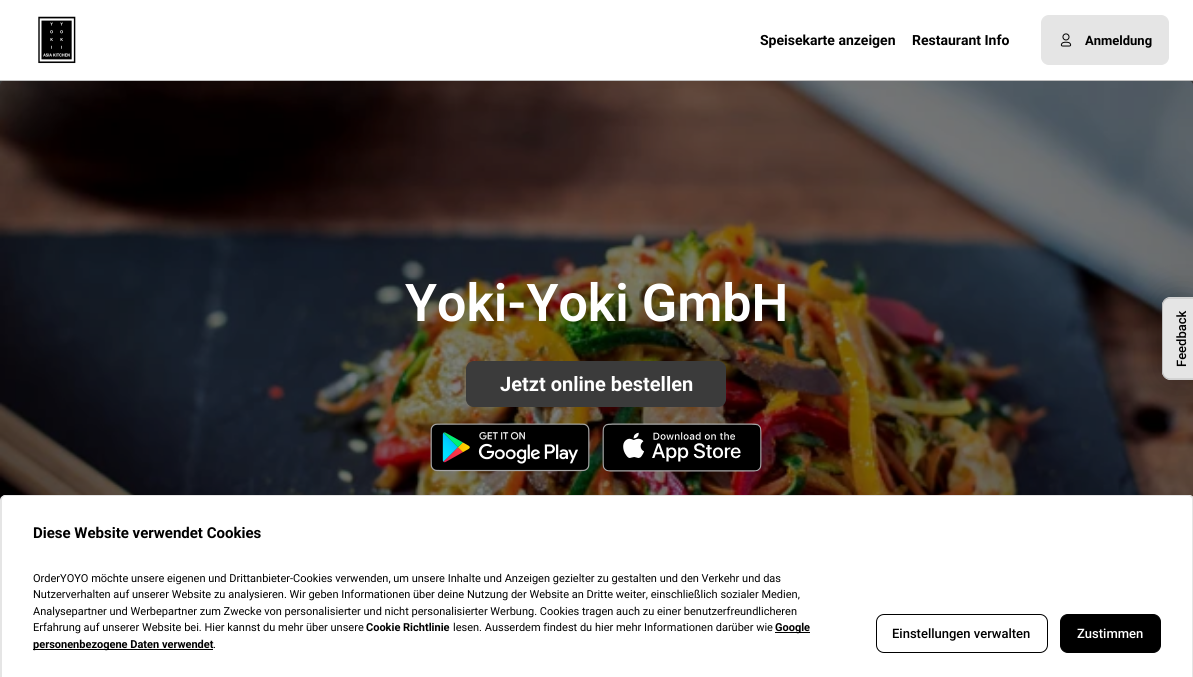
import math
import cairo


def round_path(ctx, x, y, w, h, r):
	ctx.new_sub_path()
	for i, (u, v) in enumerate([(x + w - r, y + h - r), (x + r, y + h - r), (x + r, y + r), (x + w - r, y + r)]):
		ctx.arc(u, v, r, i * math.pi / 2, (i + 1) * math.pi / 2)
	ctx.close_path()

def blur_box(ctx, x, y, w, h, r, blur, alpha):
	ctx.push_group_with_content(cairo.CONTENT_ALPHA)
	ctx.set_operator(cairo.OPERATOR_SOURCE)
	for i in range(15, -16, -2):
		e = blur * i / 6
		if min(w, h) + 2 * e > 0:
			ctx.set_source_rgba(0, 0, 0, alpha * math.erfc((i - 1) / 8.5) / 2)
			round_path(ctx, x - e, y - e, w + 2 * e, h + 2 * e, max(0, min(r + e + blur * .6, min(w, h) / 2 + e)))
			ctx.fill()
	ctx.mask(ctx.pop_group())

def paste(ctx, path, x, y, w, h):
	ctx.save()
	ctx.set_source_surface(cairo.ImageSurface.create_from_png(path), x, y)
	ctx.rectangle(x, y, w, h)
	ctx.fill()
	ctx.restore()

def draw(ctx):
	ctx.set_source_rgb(0.216, 0.216, 0.216)
	ctx.paint()
	ctx.set_source_rgb(1, 1, 1)
	ctx.rectangle(0, 0, 1193, 80)
	ctx.fill()
	paste(ctx, 'media/3.png', 0, 81, 1193, 419)
	ctx.set_source_rgba(0, 0, 0, 0.5)
	round_path(ctx, 0, 80, 1193, 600, 6)
	ctx.fill()
	ctx.set_source_rgb(0.749, 0.749, 0.749)
	ctx.rectangle(0, 80, 1193, 1)
	ctx.fill()
	paste(ctx, 'media/1.png', 38, 16, 38, 48)
	ctx.select_font_face('Roboto', cairo.FONT_SLANT_NORMAL, cairo.FONT_WEIGHT_BOLD)
	ctx.set_font_size(14)
	ctx.set_source_rgb(0, 0, 0)
	ctx.move_to(760, 45)
	ctx.show_text('Speisekarte anzeigen')
	ctx.move_to(912, 45)
	ctx.show_text('Restaurant Info')
	ctx.set_source_rgb(0.898, 0.898, 0.898)
	round_path(ctx, 1041.5, 15.5, 127, 49, 7.5)
	ctx.fill_preserve()
	ctx.set_line_width(1)
	ctx.stroke()
	paste(ctx, 'media/2.png', 1060, 33, 12, 14)
	ctx.set_font_size(13)
	ctx.set_source_rgb(0, 0, 0)
	ctx.move_to(1085, 45)
	ctx.show_text('Anmeldung')
	ctx.select_font_face('Roboto SemiBold')
	ctx.set_font_size(52)
	ctx.set_source_rgb(1, 1, 1)
	ctx.move_to(405, 321)
	ctx.show_text('Yoki-Yoki GmbH')
	ctx.set_source_rgb(0.231, 0.231, 0.231)
	round_path(ctx, 466.5, 361.5, 259, 45, 7.5)
	ctx.fill_preserve()
	ctx.stroke()
	ctx.select_font_face('Roboto', cairo.FONT_SLANT_NORMAL, cairo.FONT_WEIGHT_BOLD)
	ctx.set_font_size(20)
	ctx.set_source_rgb(1, 1, 1)
	ctx.move_to(500, 391)
	ctx.show_text('Jetzt online bestellen')
	paste(ctx, 'media/4.png', 430, 423, 160, 49)
	paste(ctx, 'media/5.png', 602, 423, 160, 49)
	ctx.set_source_rgb(0, 0, 0)
	blur_box(ctx, 1160, 295, 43, 87, 10, 17, 0.24)
	ctx.set_source_rgb(0.898, 0.898, 0.898)
	ctx.new_path()
	ctx.move_to(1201, 380)
	ctx.line_to(1170, 380)
	ctx.curve_to(1166, 380, 1162, 376, 1162, 372)
	ctx.line_to(1162, 305)
	ctx.curve_to(1162, 301, 1166, 297, 1170, 297)
	ctx.line_to(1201, 297)
	ctx.close_path()
	ctx.fill()
	ctx.new_path()
	ctx.move_to(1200.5, 379)
	ctx.line_to(1170, 379)
	ctx.curve_to(1166, 379, 1162.5, 375.5, 1162.5, 371.5)
	ctx.line_to(1162.5, 305.5)
	ctx.curve_to(1162.5, 301.5, 1166, 298, 1170, 298)
	ctx.line_to(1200.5, 298)
	ctx.close_path()
	ctx.set_source_rgb(0.749, 0.749, 0.749)
	ctx.stroke()
	ctx.select_font_face('Roboto Medium')
	ctx.set_font_size(13)
	ctx.set_source_rgb(0, 0, 0)
	ctx.save()
	ctx.translate(1186, 367)
	ctx.rotate(-90 * math.pi / 180)
	ctx.move_to(0, 0)
	ctx.show_text('Feedback')
	ctx.restore()
	ctx.set_source_rgb(1, 1, 1)
	ctx.new_path()
	ctx.move_to(6, 495)
	ctx.line_to(1189, 495)
	ctx.curve_to(1192, 495, 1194, 497, 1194, 500)
	ctx.line_to(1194, 677)
	ctx.line_to(1, 677)
	ctx.line_to(1, 500)
	ctx.curve_to(1, 497, 3, 495, 6, 495)
	ctx.close_path()
	ctx.fill()
	ctx.set_source_rgb(0.898, 0.898, 0.898)
	ctx.set_fill_rule(cairo.FILL_RULE_EVEN_ODD)
	ctx.new_path()
	ctx.move_to(6, 495)
	ctx.line_to(1188, 495)
	ctx.curve_to(1191, 495, 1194, 497, 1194, 500)
	ctx.line_to(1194, 677)
	ctx.line_to(0, 677)
	ctx.line_to(0, 500)
	ctx.curve_to(0, 497, 3, 495, 6, 495)
	ctx.close_path()
	ctx.move_to(6, 496)
	ctx.line_to(1188, 496)
	ctx.curve_to(1191, 496, 1192, 498, 1192, 500)
	ctx.line_to(1192, 677)
	ctx.line_to(2, 677)
	ctx.line_to(2, 500)
	ctx.curve_to(2, 498, 3, 496, 6, 496)
	ctx.close_path()
	ctx.fill()
	ctx.select_font_face('Roboto', cairo.FONT_SLANT_NORMAL, cairo.FONT_WEIGHT_BOLD)
	ctx.set_font_size(15)
	ctx.set_source_rgb(0, 0, 0)
	ctx.move_to(33, 538)
	ctx.show_text('Diese Website verwendet Cookies')
	ctx.select_font_face('Roboto')
	ctx.set_font_size(11)
	for x, y, s in [
		(33, 582, 'OrderYOYO möchte unsere eigenen und Drittanbieter-Cookies verwenden, um unsere Inhalte und Anzeigen gezielter zu gestalten und den Verkehr und das'),
		(33, 598, 'Nutzerverhalten auf unserer Website zu analysieren. Wir geben Informationen über deine Nutzung der Website an Dritte weiter, einschließlich sozialer Medien,'),
		(33, 615, 'Analysepartner und Werbepartner zum Zwecke von personalisierter und nicht personalisierter Werbung. Cookies tragen auch zu einer benutzerfreundlicheren'),
		(33, 631, 'Erfahrung auf unserer Website bei. Hier kannst du mehr über unsere'),
	]:
		ctx.move_to(x, y)
		ctx.show_text(s)
	ctx.select_font_face('Roboto', cairo.FONT_SLANT_NORMAL, cairo.FONT_WEIGHT_BOLD)
	ctx.move_to(366, 631)
	ctx.show_text('Cookie Richtlinie')
	ctx.select_font_face('Roboto')
	ctx.move_to(453, 631)
	ctx.show_text('lesen. Ausserdem findest du hier mehr Informationen darüber wie')
	ctx.rectangle(775, 632, 35, 1)
	ctx.fill()
	ctx.select_font_face('Roboto', cairo.FONT_SLANT_NORMAL, cairo.FONT_WEIGHT_BOLD)
	ctx.move_to(775, 631)
	ctx.show_text('Google')
	ctx.rectangle(33, 649, 180, 1)
	ctx.fill()
	ctx.move_to(33, 648)
	ctx.show_text('personenbezogene Daten verwendet')
	ctx.select_font_face('Roboto')
	ctx.move_to(213, 648)
	ctx.show_text('.')
	round_path(ctx, 876.5, 614.5, 171, 38, 7.5)
	ctx.stroke()
	ctx.select_font_face('Roboto Medium')
	ctx.set_font_size(13)
	ctx.move_to(892, 638)
	ctx.show_text('Einstellungen verwalten')
	round_path(ctx, 1060.5, 614.5, 100, 38, 7.5)
	ctx.fill_preserve()
	ctx.stroke()
	ctx.set_source_rgb(1, 1, 1)
	ctx.move_to(1077, 638)
	ctx.show_text('Zustimmen')


surface = cairo.ImageSurface(cairo.FORMAT_RGB24, 1193, 677)
ctx = cairo.Context(surface)
options = cairo.FontOptions()
options.set_hint_metrics(cairo.HINT_METRICS_OFF)
options.set_hint_style(cairo.HINT_STYLE_NONE)
ctx.set_font_options(options)
ctx.set_miter_limit(4)
draw(ctx)
surface.write_to_png('image.png')
